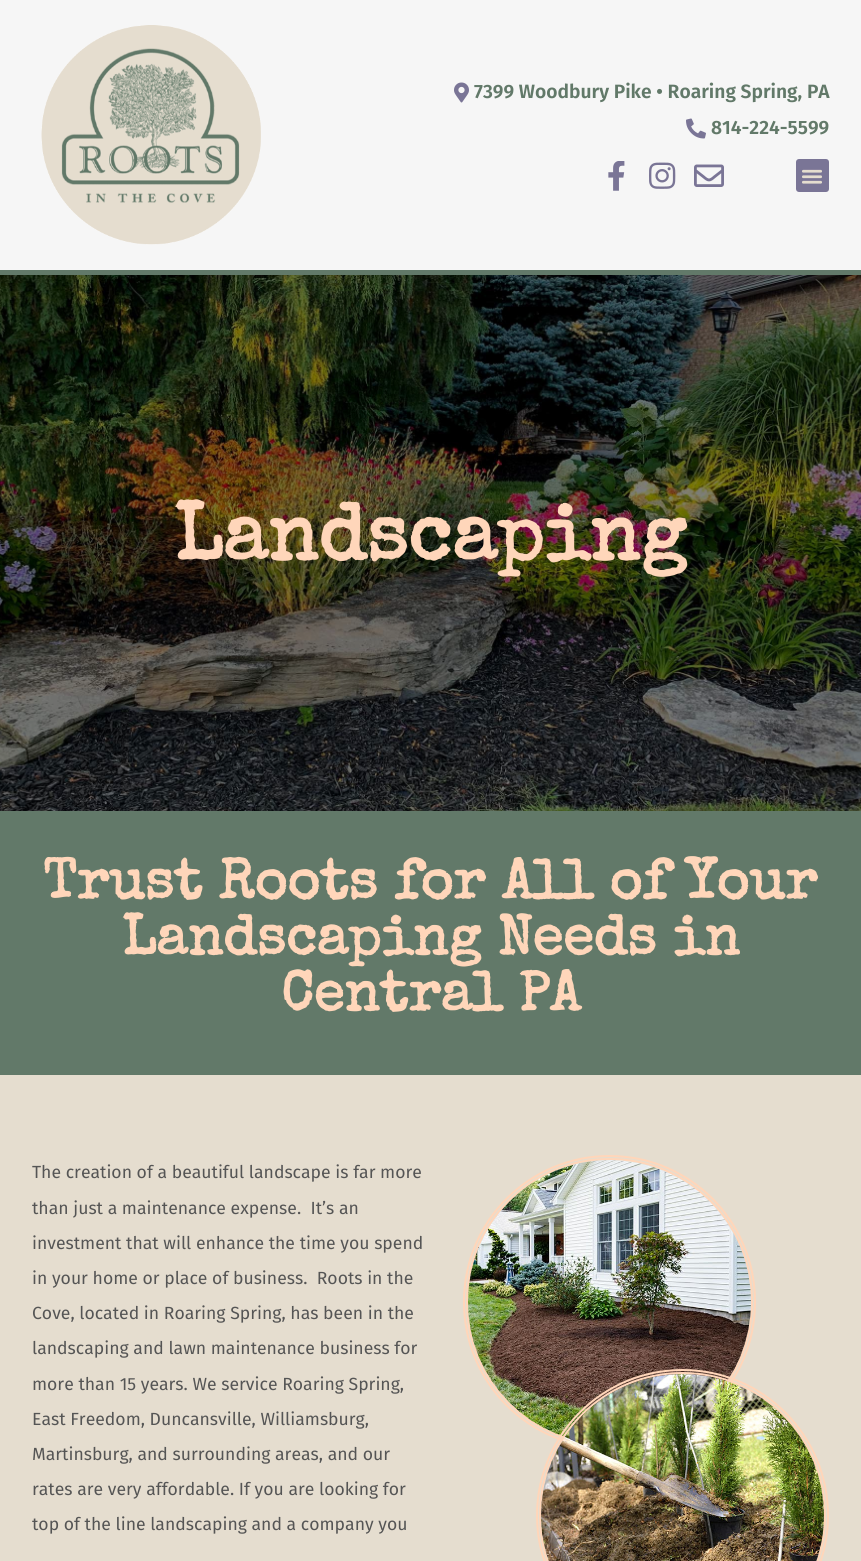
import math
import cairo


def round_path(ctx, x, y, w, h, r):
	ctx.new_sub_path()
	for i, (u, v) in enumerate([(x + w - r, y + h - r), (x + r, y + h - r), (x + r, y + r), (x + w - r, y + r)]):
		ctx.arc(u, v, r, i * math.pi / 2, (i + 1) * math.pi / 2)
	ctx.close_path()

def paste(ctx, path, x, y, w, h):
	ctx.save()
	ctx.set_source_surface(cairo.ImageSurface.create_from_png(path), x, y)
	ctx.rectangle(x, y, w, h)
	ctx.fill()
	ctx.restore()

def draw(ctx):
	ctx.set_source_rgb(1, 1, 1)
	ctx.paint()
	ctx.set_source_rgb(0.961, 0.961, 0.961)
	ctx.rectangle(0, 0, 861, 270)
	ctx.fill()
	ctx.set_source_rgb(0.384, 0.475, 0.412)
	ctx.rectangle(0, 270, 861, 5)
	ctx.fill()
	paste(ctx, 'media/1.png', 41, 25, 220, 220)
	paste(ctx, 'media/2.png', 454, 82, 15, 21)
	ctx.select_font_face('Fira Sans SemiBold')
	ctx.set_font_size(19.25)
	ctx.move_to(474, 98)
	ctx.show_text('7399 Woodbury Pike • Roaring Spring, PA')
	paste(ctx, 'media/3.png', 686, 118, 20, 21)
	ctx.move_to(711, 134)
	ctx.show_text('814-224-5599')
	paste(ctx, 'media/4.png', 608, 161, 17, 30)
	paste(ctx, 'media/5.png', 649, 162, 27, 27)
	paste(ctx, 'media/6.png', 694, 164, 30, 23)
	ctx.set_source_rgb(0.478, 0.459, 0.588)
	round_path(ctx, 796, 159, 33, 33, 3)
	ctx.fill()
	paste(ctx, 'media/7.png', 802, 169, 20, 15)
	paste(ctx, 'media/8.png', 0, 275, 861, 536)
	ctx.select_font_face('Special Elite', cairo.FONT_SLANT_NORMAL, cairo.FONT_WEIGHT_BOLD)
	ctx.set_font_size(80)
	ctx.set_source_rgb(1, 0.839, 0.729)
	ctx.move_to(174, 559)
	ctx.show_text('Landscaping')
	ctx.set_source_rgb(0.384, 0.475, 0.412)
	ctx.rectangle(0, 811, 861, 264)
	ctx.fill()
	ctx.set_font_size(56)
	ctx.set_source_rgb(1, 0.839, 0.729)
	for x, y, s in [
		(43, 898, 'Trust Roots for All of Your'),
		(122, 954, 'Landscaping Needs in'),
		(281, 1010, 'Central PA'),
	]:
		ctx.move_to(x, y)
		ctx.show_text(s)
	ctx.set_source_rgb(0.898, 0.867, 0.812)
	ctx.rectangle(0, 1075, 861, 486)
	ctx.fill()
	ctx.select_font_face('Fira Sans')
	ctx.set_font_size(17.6)
	ctx.set_source_rgb(0.333, 0.333, 0.333)
	for x, y, s in [
		(32, 1178, 'The creation of a beautiful landscape is far more'),
		(32, 1214, 'than just a maintenance expense.  It’s an'),
		(32, 1249, 'investment that will enhance the time you spend'),
		(32, 1284, 'in your home or place of business.  Roots in the'),
		(32, 1319, 'Cove, located in Roaring Spring, has been in the'),
		(32, 1354, 'landscaping and lawn maintenance business for'),
		(32, 1390, 'more than 15 years. We service Roaring Spring,'),
		(32, 1425, 'East Freedom, Duncansville, Williamsburg,'),
		(32, 1460, 'Martinsburg, and surrounding areas, and our'),
		(32, 1495, 'rates are very affordable. If you are looking for'),
		(32, 1530, 'top of the line landscaping and a company you'),
	]:
		ctx.move_to(x, y)
		ctx.show_text(s)
	round_path(ctx, 464, 1156, 291, 292, 145.5)
	ctx.set_source_rgb(1, 0.839, 0.729)
	ctx.stroke()
	round_path(ctx, 467, 1159, 285, 286, 142.5)
	ctx.stroke()
	paste(ctx, 'media/9.png', 468, 1160, 283, 277)
	ctx.arc(682.5, 1515.5, 145.5, 0, 2 * math.pi)
	ctx.stroke()
	ctx.arc(682.5, 1515.5, 142.5, 0, 2 * math.pi)
	ctx.stroke()
	paste(ctx, 'media/10.png', 541, 1374, 283, 187)


surface = cairo.ImageSurface(cairo.FORMAT_RGB24, 861, 1561)
ctx = cairo.Context(surface)
options = cairo.FontOptions()
options.set_hint_metrics(cairo.HINT_METRICS_OFF)
options.set_hint_style(cairo.HINT_STYLE_NONE)
ctx.set_font_options(options)
ctx.set_miter_limit(4)
draw(ctx)
surface.write_to_png('image.png')
